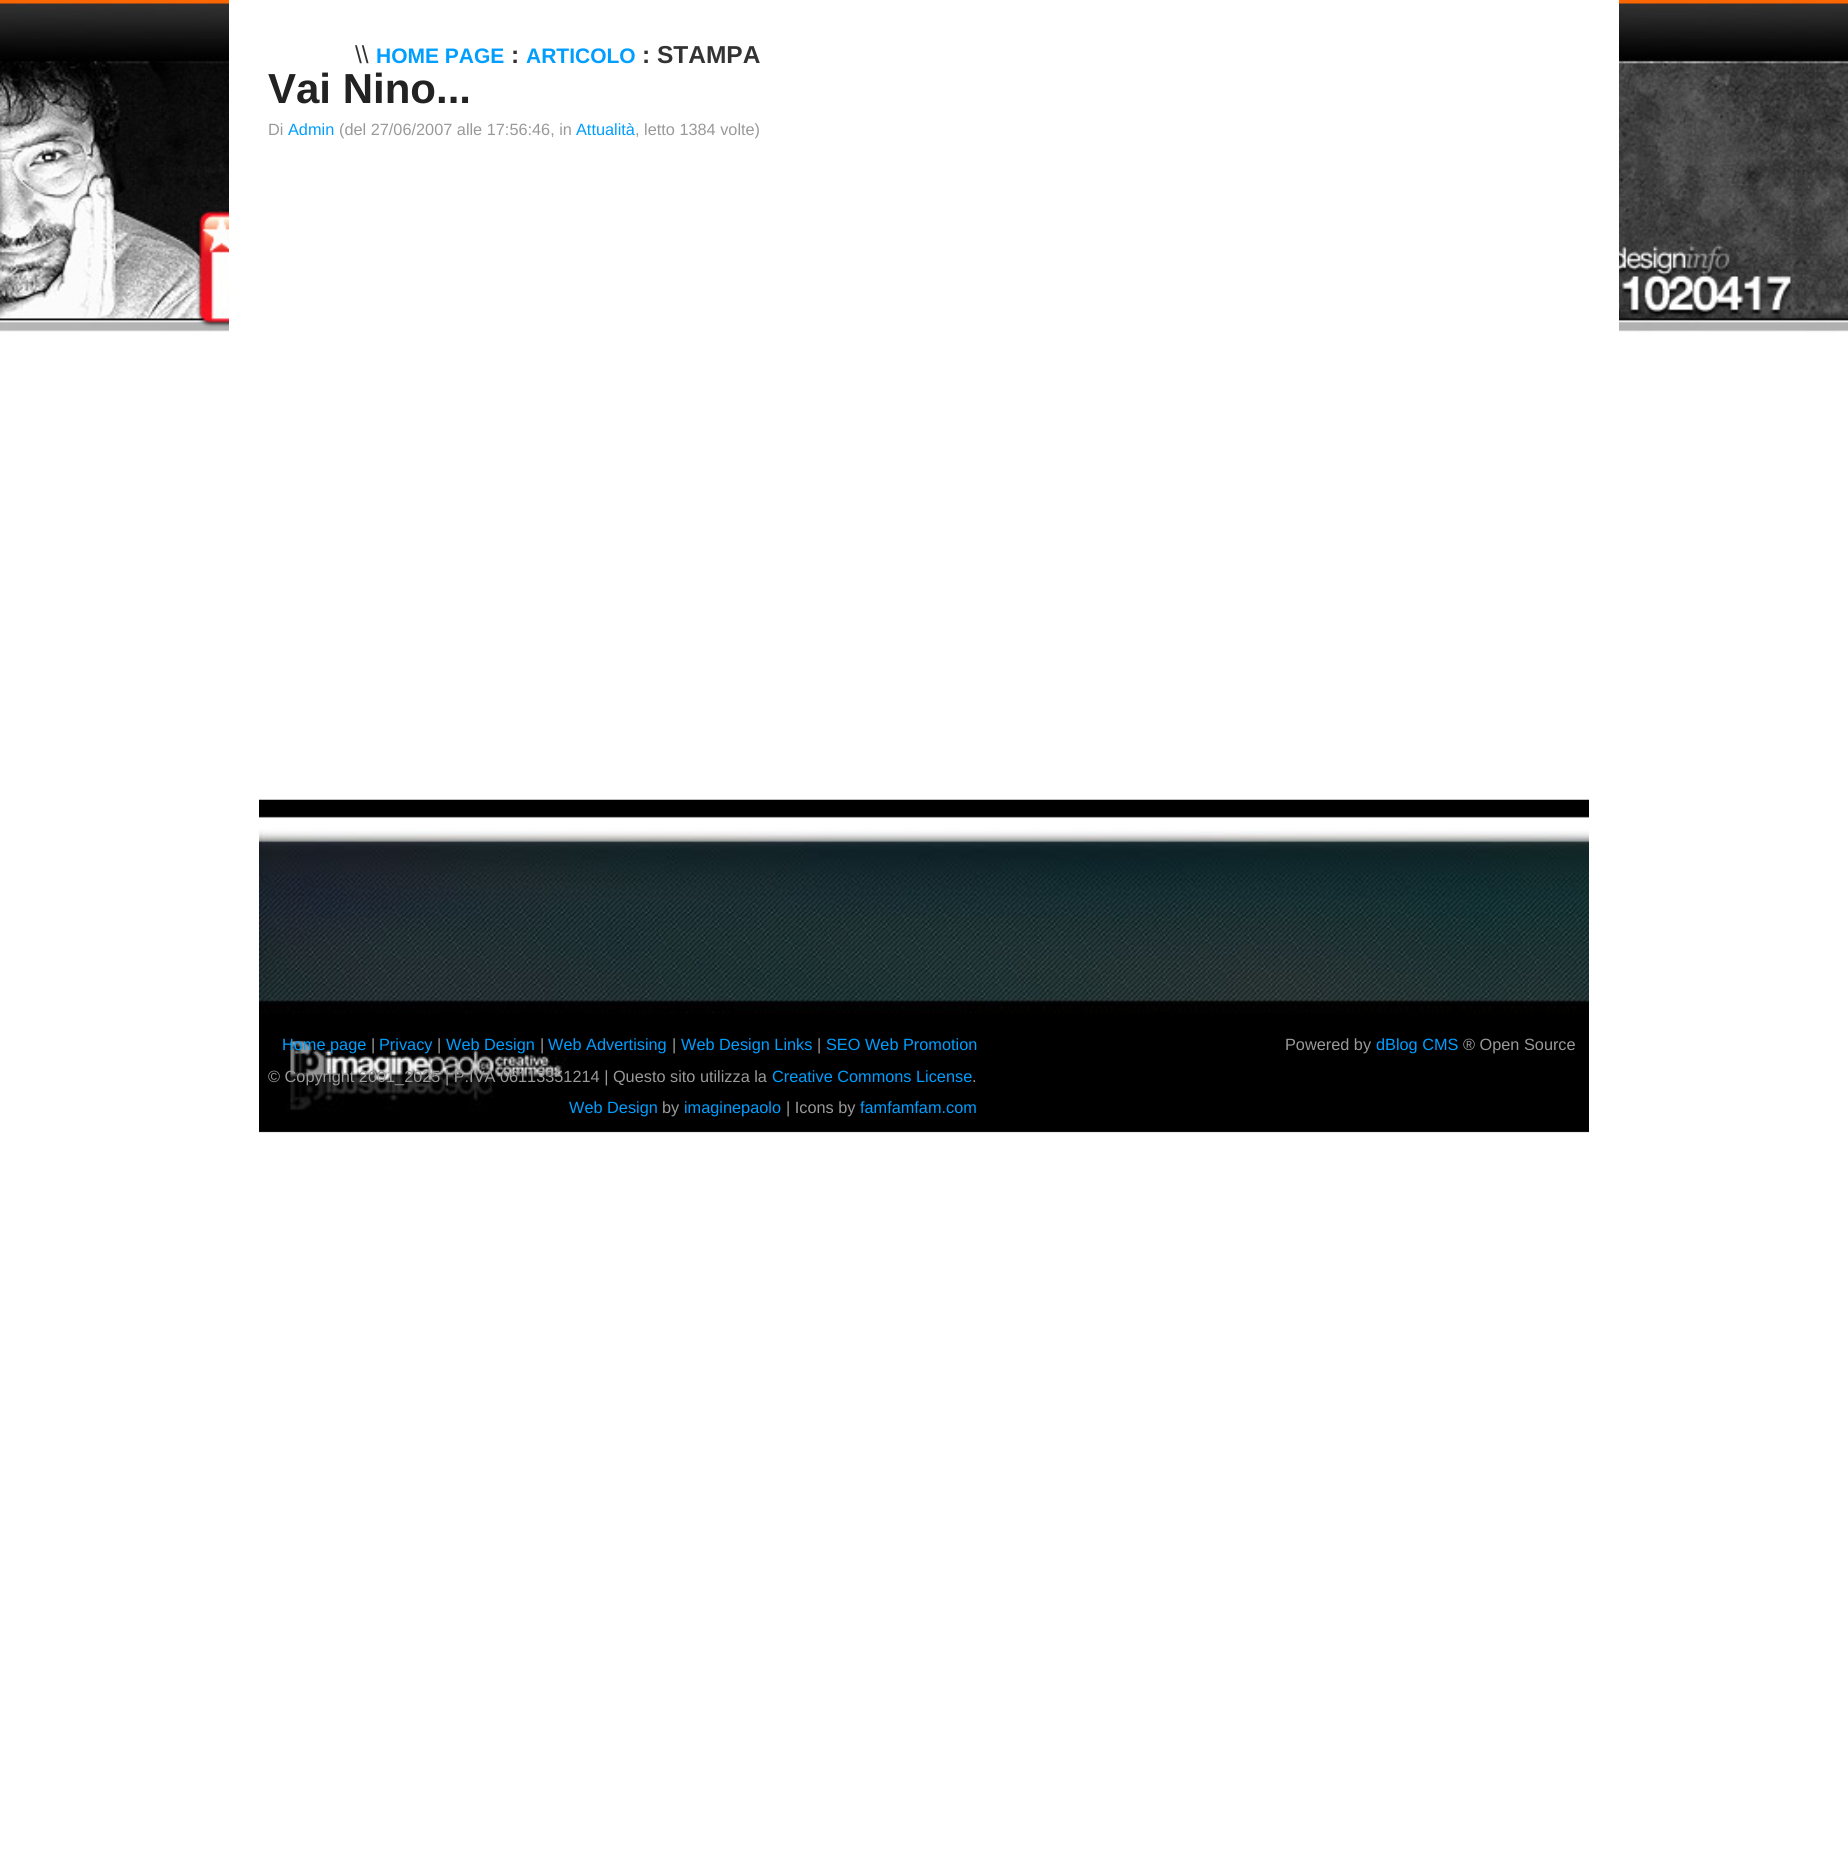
import math
import cairo


def paste(ctx, path, x, y, w, h):
	ctx.save()
	ctx.set_source_surface(cairo.ImageSurface.create_from_png(path), x, y)
	ctx.rectangle(x, y, w, h)
	ctx.fill()
	ctx.restore()

def draw(ctx):
	ctx.set_source_rgb(1, 1, 1)
	ctx.paint()
	paste(ctx, 'media/1.png', 0, 0, 1848, 356)
	ctx.set_source_rgb(1, 1, 1)
	ctx.rectangle(229, 0, 1390, 356)
	ctx.fill()
	ctx.select_font_face('Liberation Sans')
	ctx.set_font_size(24.5)
	ctx.set_source_rgb(0.2, 0.2, 0.2)
	ctx.move_to(355, 63)
	ctx.show_text('\\\\')
	ctx.select_font_face('Liberation Sans', cairo.FONT_SLANT_NORMAL, cairo.FONT_WEIGHT_BOLD)
	ctx.set_font_size(21)
	ctx.set_source_rgb(0, 0.62, 1)
	ctx.move_to(376, 63)
	ctx.show_text('HOME PAGE')
	ctx.set_font_size(24.5)
	ctx.set_source_rgb(0.2, 0.2, 0.2)
	ctx.move_to(511, 63)
	ctx.show_text(':')
	ctx.set_font_size(21)
	ctx.set_source_rgb(0, 0.62, 1)
	ctx.move_to(526, 63)
	ctx.show_text('ARTICOLO')
	ctx.set_font_size(24.5)
	ctx.set_source_rgb(0.2, 0.2, 0.2)
	ctx.move_to(642, 63)
	ctx.show_text(': STAMPA')
	ctx.set_font_size(42)
	ctx.set_source_rgb(0.133, 0.133, 0.133)
	ctx.move_to(268, 103)
	ctx.show_text('Vai Nino...')
	ctx.select_font_face('Liberation Sans')
	ctx.set_font_size(16.3)
	ctx.set_source_rgb(0.6, 0.6, 0.6)
	ctx.move_to(268, 135)
	ctx.show_text('Di')
	ctx.set_source_rgb(0, 0.62, 1)
	ctx.move_to(288, 135)
	ctx.show_text('Admin')
	ctx.set_source_rgb(0.6, 0.6, 0.6)
	ctx.move_to(339, 135)
	ctx.show_text('(del 27/06/2007 alle 17:56:46, in')
	ctx.set_source_rgb(0, 0.62, 1)
	ctx.move_to(576, 135)
	ctx.show_text('Attualità')
	ctx.set_source_rgb(0.6, 0.6, 0.6)
	ctx.move_to(635, 135)
	ctx.show_text(', letto 1384 volte)')
	paste(ctx, 'media/2.png', 259, 799, 1330, 334)
	ctx.set_source_rgb(0, 0.62, 1)
	ctx.move_to(282, 1050)
	ctx.show_text('Home page')
	ctx.set_source_rgb(0.6, 0.6, 0.6)
	ctx.move_to(371, 1050)
	ctx.show_text('|')
	ctx.set_source_rgb(0, 0.62, 1)
	ctx.move_to(379, 1050)
	ctx.show_text('Privacy')
	ctx.set_source_rgb(0.6, 0.6, 0.6)
	ctx.move_to(437, 1050)
	ctx.show_text('|')
	ctx.set_source_rgb(0, 0.62, 1)
	ctx.move_to(446, 1050)
	ctx.show_text('Web Design')
	ctx.set_source_rgb(0.6, 0.6, 0.6)
	ctx.move_to(540, 1050)
	ctx.show_text('|')
	ctx.set_source_rgb(0, 0.62, 1)
	ctx.move_to(548, 1050)
	ctx.show_text('Web Advertising')
	ctx.set_source_rgb(0.6, 0.6, 0.6)
	ctx.move_to(672, 1050)
	ctx.show_text('|')
	ctx.set_source_rgb(0, 0.62, 1)
	ctx.move_to(681, 1050)
	ctx.show_text('Web Design Links')
	ctx.set_source_rgb(0.6, 0.6, 0.6)
	ctx.move_to(817, 1050)
	ctx.show_text('|')
	ctx.set_source_rgb(0, 0.62, 1)
	ctx.move_to(826, 1050)
	ctx.show_text('SEO Web Promotion')
	ctx.set_source_rgb(0.6, 0.6, 0.6)
	ctx.move_to(268, 1082)
	ctx.show_text('© Copyright 2001_2025 | P.IVA 06113351214 | Questo sito utilizza la')
	ctx.set_source_rgb(0, 0.62, 1)
	ctx.move_to(772, 1082)
	ctx.show_text('Creative Commons License')
	ctx.set_source_rgb(0.6, 0.6, 0.6)
	ctx.move_to(972, 1082)
	ctx.show_text('.')
	ctx.set_source_rgb(0, 0.62, 1)
	ctx.move_to(569, 1113)
	ctx.show_text('Web Design')
	ctx.set_source_rgb(0.6, 0.6, 0.6)
	ctx.move_to(662, 1113)
	ctx.show_text('by')
	ctx.set_source_rgb(0, 0.62, 1)
	ctx.move_to(684, 1113)
	ctx.show_text('imaginepaolo')
	ctx.set_source_rgb(0.6, 0.6, 0.6)
	ctx.move_to(786, 1113)
	ctx.show_text('| Icons by')
	ctx.set_source_rgb(0, 0.62, 1)
	ctx.move_to(860, 1113)
	ctx.show_text('famfamfam.com')
	ctx.set_source_rgb(0.6, 0.6, 0.6)
	ctx.move_to(1285, 1050)
	ctx.show_text('Powered by')
	ctx.set_source_rgb(0, 0.62, 1)
	ctx.move_to(1376, 1050)
	ctx.show_text('dBlog CMS')
	ctx.set_source_rgb(0.6, 0.6, 0.6)
	ctx.move_to(1463, 1050)
	ctx.show_text('® Open Source')


surface = cairo.ImageSurface(cairo.FORMAT_RGB24, 1848, 1850)
ctx = cairo.Context(surface)
options = cairo.FontOptions()
options.set_hint_metrics(cairo.HINT_METRICS_OFF)
options.set_hint_style(cairo.HINT_STYLE_NONE)
ctx.set_font_options(options)
ctx.set_miter_limit(4)
draw(ctx)
surface.write_to_png('image.png')
